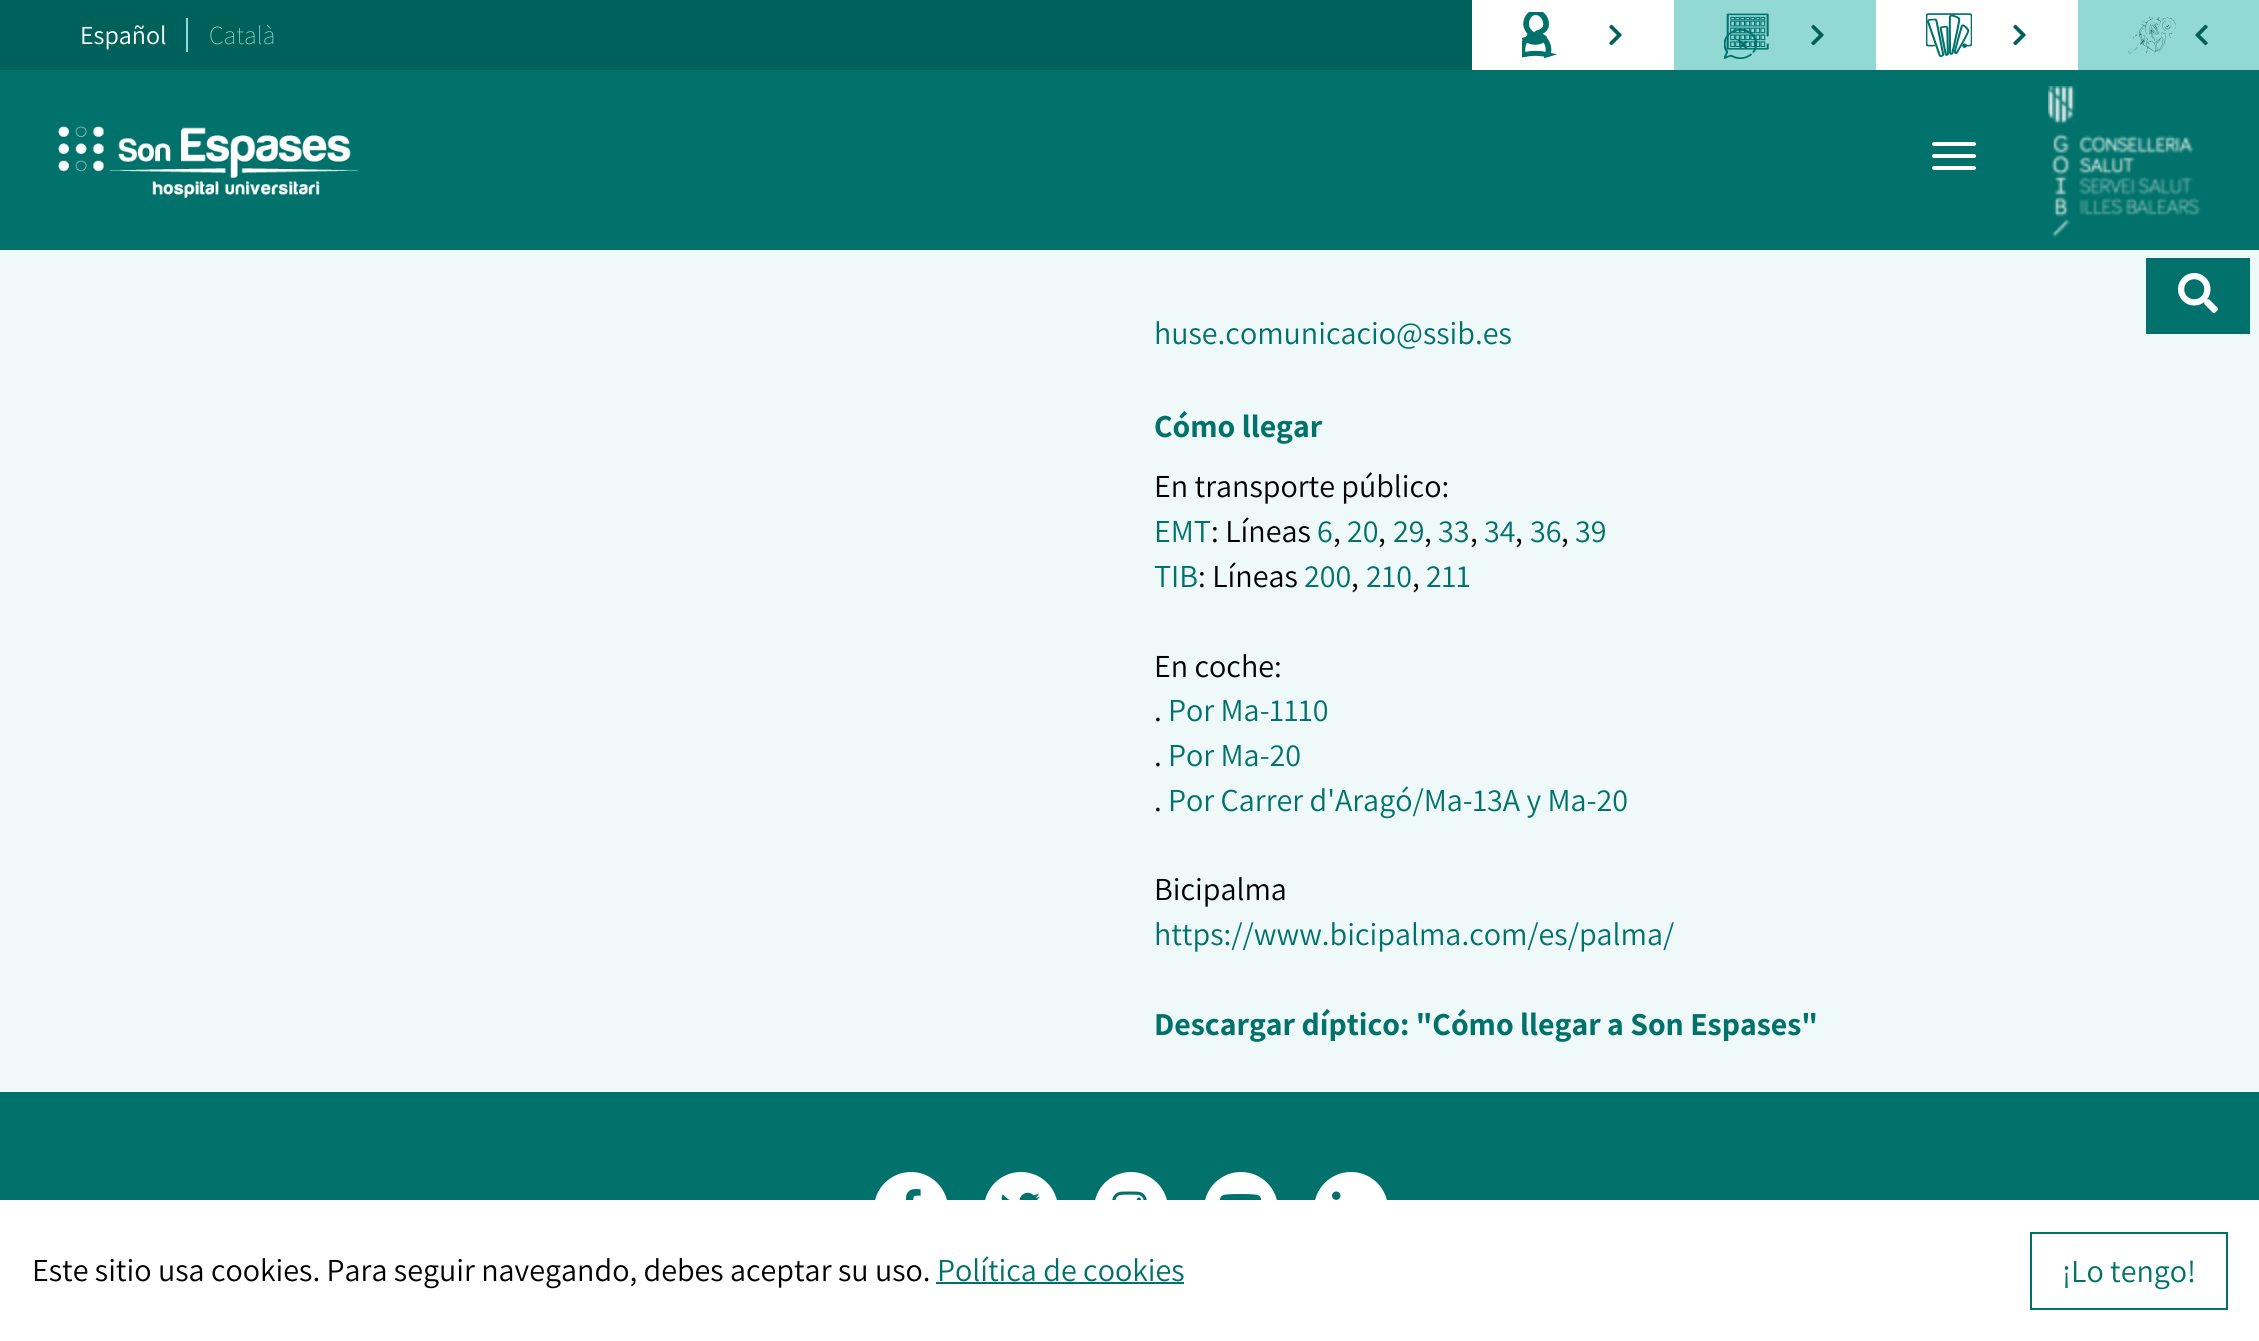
import math
import cairo


def round_path(ctx, x, y, w, h, r):
	ctx.new_sub_path()
	for i, (u, v) in enumerate([(x + w - r, y + h - r), (x + r, y + h - r), (x + r, y + r), (x + w - r, y + r)]):
		ctx.arc(u, v, r, i * math.pi / 2, (i + 1) * math.pi / 2)
	ctx.close_path()

def paste(ctx, path, x, y, w, h):
	ctx.save()
	ctx.set_source_surface(cairo.ImageSurface.create_from_png(path), x, y)
	ctx.rectangle(x, y, w, h)
	ctx.fill()
	ctx.restore()

def draw(ctx):
	ctx.set_source_rgb(0.937, 0.973, 0.973)
	ctx.paint()
	ctx.set_source_rgb(0, 0.447, 0.42)
	ctx.rectangle(0, 70, 2259, 180)
	ctx.fill()
	ctx.set_source_rgb(0, 0.38, 0.357)
	ctx.rectangle(0, 0, 1472, 70)
	ctx.fill()
	ctx.set_source_rgb(0.573, 0.847, 0.831)
	ctx.rectangle(186, 18, 2, 34)
	ctx.fill()
	ctx.select_font_face('Assistant')
	ctx.set_font_size(26)
	ctx.set_source_rgb(1, 1, 1)
	ctx.move_to(80, 44)
	ctx.show_text('Español')
	ctx.select_font_face('Assistant ExtraLight')
	ctx.set_source_rgb(0.573, 0.847, 0.831)
	ctx.move_to(209, 44)
	ctx.show_text('Català')
	ctx.set_source_rgb(1, 1, 1)
	ctx.rectangle(1472, 0, 202, 70)
	ctx.fill()
	paste(ctx, 'media/1.png', 1522, 12, 35, 46)
	paste(ctx, 'media/2.png', 1609, 24, 13, 22)
	ctx.set_source_rgb(0.573, 0.847, 0.831)
	ctx.rectangle(1674, 0, 202, 70)
	ctx.fill()
	paste(ctx, 'media/3.png', 1724, 13, 45, 47)
	paste(ctx, 'media/4.png', 1811, 24, 13, 22)
	ctx.set_source_rgb(1, 1, 1)
	ctx.rectangle(1876, 0, 202, 70)
	ctx.fill()
	paste(ctx, 'media/5.png', 1926, 13, 46, 44)
	paste(ctx, 'media/2.png', 2013, 24, 13, 22)
	ctx.set_source_rgb(0.573, 0.847, 0.831)
	ctx.rectangle(2078, 0, 181, 70)
	ctx.fill()
	paste(ctx, 'media/6.png', 2128, 16, 48, 38)
	paste(ctx, 'media/7.png', 2195, 24, 13, 22)
	paste(ctx, 'media/8.png', 58, 126, 300, 72)
	ctx.set_source_rgb(1, 1, 1)
	round_path(ctx, 1932, 142, 44, 4, 2)
	ctx.fill()
	round_path(ctx, 1932, 154, 44, 4, 2)
	ctx.fill()
	round_path(ctx, 1932, 166, 44, 4, 2)
	ctx.fill()
	paste(ctx, 'media/9.png', 2048, 86, 153, 152)
	ctx.set_source_rgb(0, 0.447, 0.42)
	ctx.rectangle(2146, 258, 104, 76)
	ctx.fill()
	paste(ctx, 'media/10.png', 2178, 273, 40, 40)
	ctx.select_font_face('Assistant')
	ctx.set_font_size(32)
	ctx.move_to(1154, 344)
	ctx.show_text('huse.comunicacio@ssib.es')
	ctx.select_font_face('Assistant', cairo.FONT_SLANT_NORMAL, cairo.FONT_WEIGHT_BOLD)
	ctx.move_to(1154, 437)
	ctx.show_text('Cómo llegar')
	ctx.select_font_face('Assistant')
	ctx.set_source_rgb(0, 0, 0)
	ctx.move_to(1154, 497)
	ctx.show_text('En transporte público:')
	ctx.set_source_rgb(0, 0.447, 0.42)
	ctx.move_to(1154, 542)
	ctx.show_text('EMT')
	ctx.set_source_rgb(0, 0, 0)
	ctx.move_to(1211, 542)
	ctx.show_text(': Líneas')
	ctx.set_source_rgb(0, 0.447, 0.42)
	ctx.move_to(1317, 542)
	ctx.show_text('6')
	ctx.set_source_rgb(0, 0, 0)
	ctx.move_to(1333, 542)
	ctx.show_text(',')
	ctx.set_source_rgb(0, 0.447, 0.42)
	ctx.move_to(1347, 542)
	ctx.show_text('20')
	ctx.set_source_rgb(0, 0, 0)
	ctx.move_to(1378, 542)
	ctx.show_text(',')
	ctx.set_source_rgb(0, 0.447, 0.42)
	ctx.move_to(1393, 542)
	ctx.show_text('29')
	ctx.set_source_rgb(0, 0, 0)
	ctx.move_to(1424, 542)
	ctx.show_text(',')
	ctx.set_source_rgb(0, 0.447, 0.42)
	ctx.move_to(1438, 542)
	ctx.show_text('33')
	ctx.set_source_rgb(0, 0, 0)
	ctx.move_to(1470, 542)
	ctx.show_text(',')
	ctx.set_source_rgb(0, 0.447, 0.42)
	ctx.move_to(1484, 542)
	ctx.show_text('34')
	ctx.set_source_rgb(0, 0, 0)
	ctx.move_to(1515, 542)
	ctx.show_text(',')
	ctx.set_source_rgb(0, 0.447, 0.42)
	ctx.move_to(1530, 542)
	ctx.show_text('36')
	ctx.set_source_rgb(0, 0, 0)
	ctx.move_to(1561, 542)
	ctx.show_text(',')
	ctx.set_source_rgb(0, 0.447, 0.42)
	ctx.move_to(1575, 542)
	ctx.show_text('39')
	ctx.move_to(1154, 587)
	ctx.show_text('TIB')
	ctx.set_source_rgb(0, 0, 0)
	ctx.move_to(1198, 587)
	ctx.show_text(': Líneas')
	ctx.set_source_rgb(0, 0.447, 0.42)
	for x, y, s in [
		(1304, 587, '200'),
		(1366, 587, '210'),
		(1426, 587, '211'),
	]:
		ctx.move_to(x, y)
		ctx.show_text(s)
	ctx.set_source_rgb(0, 0, 0)
	for x, y, s in [
		(1351, 587, ','),
		(1412, 587, ','),
		(1154, 677, 'En coche:'),
		(1154, 721, '.'),
	]:
		ctx.move_to(x, y)
		ctx.show_text(s)
	ctx.set_source_rgb(0, 0.447, 0.42)
	ctx.move_to(1168, 721)
	ctx.show_text('Por Ma-1110')
	ctx.set_source_rgb(0, 0, 0)
	ctx.move_to(1154, 766)
	ctx.show_text('.')
	ctx.set_source_rgb(0, 0.447, 0.42)
	ctx.move_to(1168, 766)
	ctx.show_text('Por Ma-20')
	ctx.set_source_rgb(0, 0, 0)
	ctx.move_to(1154, 811)
	ctx.show_text('.')
	ctx.set_source_rgb(0, 0.447, 0.42)
	ctx.move_to(1168, 811)
	ctx.show_text('Por Carrer d\'Aragó/Ma-13A y Ma-20')
	ctx.set_source_rgb(0, 0, 0)
	ctx.move_to(1154, 900)
	ctx.show_text('Bicipalma')
	ctx.set_source_rgb(0, 0.447, 0.42)
	ctx.move_to(1154, 945)
	ctx.show_text('https://www.bicipalma.com/es/palma/')
	ctx.select_font_face('Assistant', cairo.FONT_SLANT_NORMAL, cairo.FONT_WEIGHT_BOLD)
	ctx.move_to(1154, 1035)
	ctx.show_text('Descargar díptico: "Cómo llegar a Son Espases"')
	ctx.rectangle(0, 1092, 2259, 108)
	ctx.fill()
	ctx.set_source_rgb(1, 1, 1)
	ctx.arc(911, 1209, 37, 0, 2 * math.pi)
	ctx.fill()
	paste(ctx, 'media/11.png', 906, 1189, 15, 11)
	ctx.arc(1021, 1209, 37, 0, 2 * math.pi)
	ctx.fill()
	paste(ctx, 'media/12.png', 1001, 1192, 39, 8)
	ctx.arc(1131, 1209, 37, 0, 2 * math.pi)
	ctx.fill()
	paste(ctx, 'media/13.png', 1112, 1191, 35, 9)
	ctx.arc(1241, 1209, 37, 0, 2 * math.pi)
	ctx.fill()
	paste(ctx, 'media/14.png', 1219, 1194, 43, 6)
	ctx.arc(1351, 1209, 37, 0, 2 * math.pi)
	ctx.fill()
	paste(ctx, 'media/15.png', 1332, 1191, 9, 9)
	ctx.rectangle(0, 1200, 2259, 141)
	ctx.fill()
	ctx.select_font_face('Assistant')
	ctx.set_source_rgb(0, 0, 0)
	ctx.move_to(32, 1281)
	ctx.show_text('Este sitio usa cookies. Para seguir navegando, debes aceptar su uso.')
	ctx.set_source_rgb(0, 0.447, 0.42)
	ctx.move_to(937, 1281)
	ctx.show_text('Política de cookies')
	ctx.rectangle(936, 1282, 248, 2)
	ctx.fill()
	ctx.rectangle(2031, 1233, 196, 76)
	ctx.stroke()
	ctx.move_to(2062, 1282)
	ctx.show_text('¡Lo tengo!')


surface = cairo.ImageSurface(cairo.FORMAT_RGB24, 2259, 1341)
ctx = cairo.Context(surface)
options = cairo.FontOptions()
options.set_hint_metrics(cairo.HINT_METRICS_OFF)
options.set_hint_style(cairo.HINT_STYLE_NONE)
ctx.set_font_options(options)
ctx.set_miter_limit(4)
draw(ctx)
surface.write_to_png('image.png')
